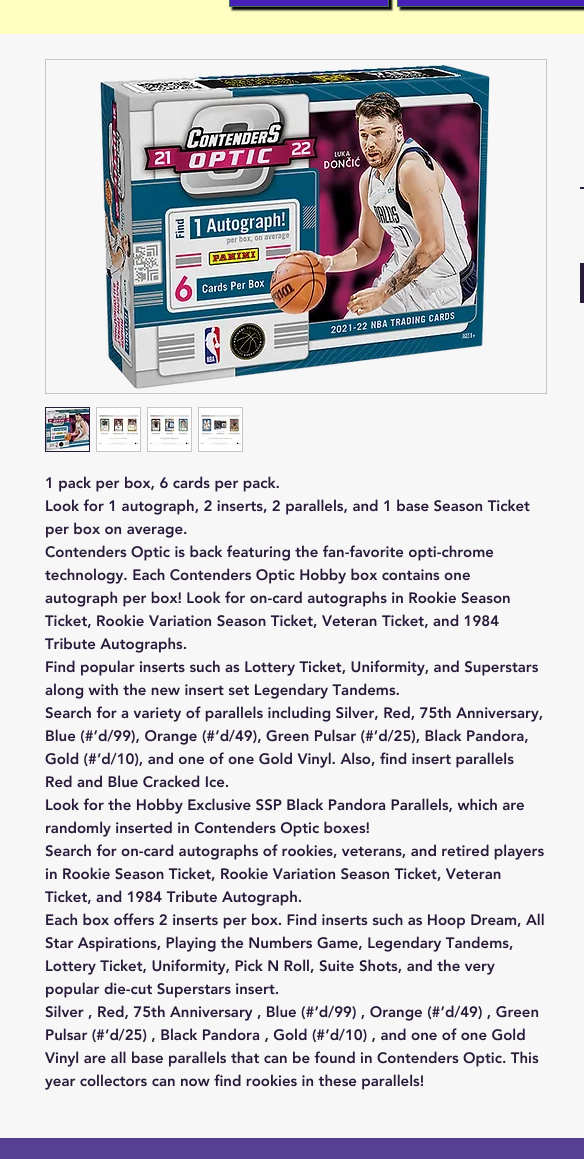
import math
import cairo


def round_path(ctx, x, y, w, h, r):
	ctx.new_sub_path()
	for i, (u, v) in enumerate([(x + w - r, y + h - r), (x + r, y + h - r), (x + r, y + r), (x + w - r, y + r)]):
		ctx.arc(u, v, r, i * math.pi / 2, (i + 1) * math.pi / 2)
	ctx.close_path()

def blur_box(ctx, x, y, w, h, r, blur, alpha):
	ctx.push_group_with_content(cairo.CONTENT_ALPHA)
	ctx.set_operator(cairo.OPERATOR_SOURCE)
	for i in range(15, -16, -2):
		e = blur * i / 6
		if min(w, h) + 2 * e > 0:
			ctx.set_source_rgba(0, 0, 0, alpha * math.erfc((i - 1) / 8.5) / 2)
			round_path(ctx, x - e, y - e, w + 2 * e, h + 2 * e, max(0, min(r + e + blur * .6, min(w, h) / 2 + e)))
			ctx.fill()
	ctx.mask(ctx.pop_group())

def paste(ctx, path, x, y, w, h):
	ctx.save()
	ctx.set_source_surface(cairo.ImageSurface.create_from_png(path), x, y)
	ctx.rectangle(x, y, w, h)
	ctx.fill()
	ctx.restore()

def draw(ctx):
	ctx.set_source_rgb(0.996, 1, 0.757)
	ctx.paint()
	ctx.set_source_rgb(0, 0, 0)
	blur_box(ctx, 232, -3, 160, 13, 0, 1, 1)
	ctx.set_source_rgb(0.278, 0.125, 0.718)
	ctx.rectangle(229.5, -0.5, 159, 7)
	ctx.fill_preserve()
	ctx.set_source_rgb(0.247, 0.463, 0.322)
	ctx.set_line_width(1)
	ctx.stroke()
	ctx.set_source_rgb(0, 0, 0)
	blur_box(ctx, 400, -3, 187, 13, 0, 1, 1)
	ctx.set_source_rgb(0.278, 0.125, 0.718)
	ctx.rectangle(397.5, -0.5, 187, 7)
	ctx.fill_preserve()
	ctx.set_source_rgb(0.247, 0.463, 0.322)
	ctx.stroke()
	ctx.set_source_rgb(0.965, 0.965, 0.965)
	ctx.rectangle(0, 34, 584, 1104)
	ctx.fill()
	ctx.set_source_rgb(0.157, 0.102, 0.224)
	ctx.rectangle(580, 187, 4, 2)
	ctx.rectangle(580, 263, 4, 40)
	ctx.fill()
	ctx.rectangle(45.5, 59.5, 501, 334)
	ctx.set_source_rgb(0.773, 0.773, 0.773)
	ctx.stroke()
	paste(ctx, 'media/1.png', 100, 64, 390, 325)
	ctx.rectangle(45.5, 407.5, 44, 44)
	ctx.set_source_rgb(0.157, 0.102, 0.224)
	ctx.stroke()
	paste(ctx, 'media/2.png', 46, 408, 43, 43)
	ctx.rectangle(96.5, 407.5, 44, 44)
	ctx.set_source_rgb(0.773, 0.773, 0.773)
	ctx.stroke()
	paste(ctx, 'media/3.png', 97, 408, 43, 43)
	ctx.rectangle(147.5, 407.5, 44, 44)
	ctx.stroke()
	paste(ctx, 'media/4.png', 148, 408, 43, 43)
	ctx.rectangle(198.5, 407.5, 44, 44)
	ctx.stroke()
	paste(ctx, 'media/5.png', 199, 408, 43, 43)
	ctx.select_font_face('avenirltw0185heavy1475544 Black')
	ctx.set_font_size(15)
	ctx.set_source_rgb(0.157, 0.102, 0.224)
	for x, y, s in [
		(45, 488, '1 pack per box, 6 cards per pack.'),
		(45, 511, 'Look for 1 autograph, 2 inserts, 2 parallels, and 1 base Season Ticket'),
		(45, 534, 'per box on average.'),
		(45, 557, 'Contenders Optic is back featuring the fan-favorite opti-chrome'),
		(45, 580, 'technology. Each Contenders Optic Hobby box contains one'),
		(45, 603, 'autograph per box! Look for on-card autographs in Rookie Season'),
		(45, 626, 'Ticket, Rookie Variation Season Ticket, Veteran Ticket, and 1984'),
		(45, 649, 'Tribute Autographs.'),
		(45, 672, 'Find popular inserts such as Lottery Ticket, Uniformity, and Superstars'),
		(45, 695, 'along with the new insert set Legendary Tandems.'),
		(45, 718, 'Search for a variety of parallels including Silver, Red, 75th Anniversary,'),
		(45, 741, 'Blue (#’d/99), Orange (#’d/49), Green Pulsar (#’d/25), Black Pandora,'),
		(45, 764, 'Gold (#’d/10), and one of one Gold Vinyl. Also, find insert parallels'),
		(45, 787, 'Red and Blue Cracked Ice.'),
		(45, 810, 'Look for the Hobby Exclusive SSP Black Pandora Parallels, which are'),
		(45, 833, 'randomly inserted in Contenders Optic boxes!'),
		(45, 856, 'Search for on-card autographs of rookies, veterans, and retired players'),
		(45, 879, 'in Rookie Season Ticket, Rookie Variation Season Ticket, Veteran'),
		(45, 902, 'Ticket, and 1984 Tribute Autograph.'),
		(45, 925, 'Each box offers 2 inserts per box. Find inserts such as Hoop Dream, All'),
		(45, 948, 'Star Aspirations, Playing the Numbers Game, Legendary Tandems,'),
		(45, 971, 'Lottery Ticket, Uniformity, Pick N Roll, Suite Shots, and the very'),
		(45, 994, 'popular die-cut Superstars insert.'),
		(45, 1017, 'Silver , Red, 75th Anniversary , Blue (#’d/99) , Orange (#’d/49) , Green'),
		(45, 1040, 'Pulsar (#’d/25) , Black Pandora , Gold (#’d/10) , and one of one Gold'),
		(45, 1063, 'Vinyl are all base parallels that can be found in Contenders Optic. This'),
		(45, 1086, 'year collectors can now find rookies in these parallels!'),
	]:
		ctx.move_to(x, y)
		ctx.show_text(s)
	ctx.set_source_rgb(0.333, 0.251, 0.573)
	ctx.rectangle(0, 1138, 584, 21)
	ctx.fill()


surface = cairo.ImageSurface(cairo.FORMAT_RGB24, 584, 1159)
ctx = cairo.Context(surface)
options = cairo.FontOptions()
options.set_hint_metrics(cairo.HINT_METRICS_OFF)
options.set_hint_style(cairo.HINT_STYLE_NONE)
ctx.set_font_options(options)
ctx.set_miter_limit(4)
draw(ctx)
surface.write_to_png('image.png')
